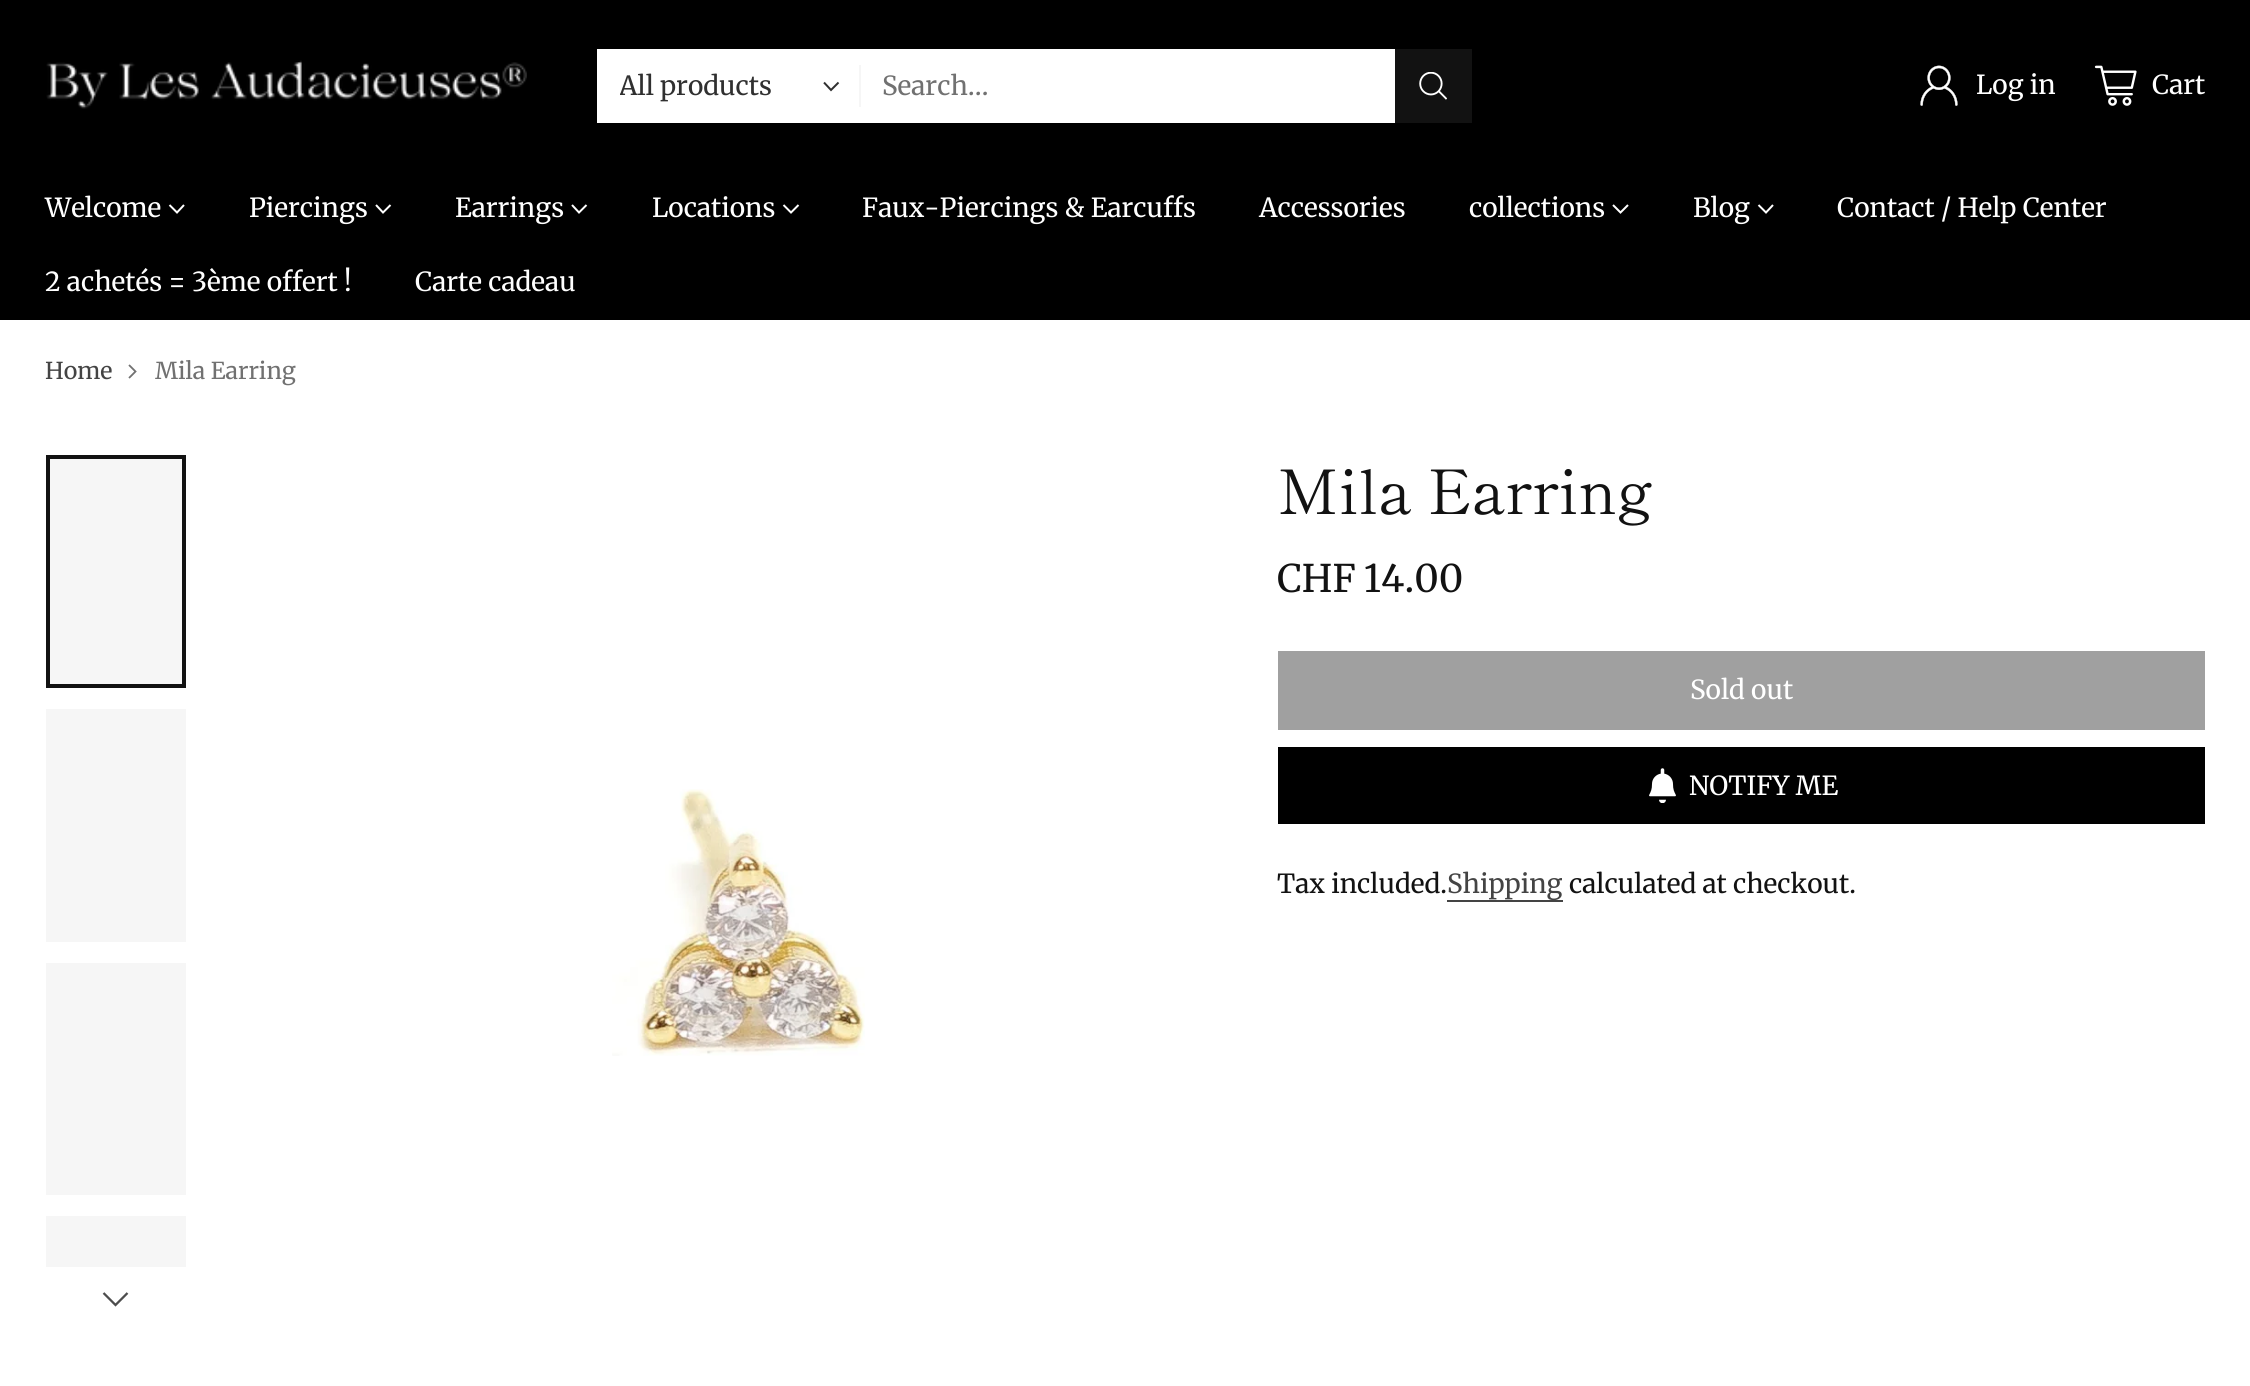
import math
import cairo


def write_spaced(ctx, x, y, s, letter, word):
	ctx.move_to(x, y)
	for ch in s:
		ctx.show_text(ch)
		ctx.rel_move_to(letter + word * (ch == ' '), 0)

def paste(ctx, path, x, y, w, h):
	ctx.save()
	ctx.set_source_surface(cairo.ImageSurface.create_from_png(path), x, y)
	ctx.rectangle(x, y, w, h)
	ctx.fill()
	ctx.restore()

def draw(ctx):
	ctx.set_source_rgb(1, 1, 1)
	ctx.paint()
	ctx.set_source_rgb(0, 0, 0)
	ctx.rectangle(0, 0, 2250, 320)
	ctx.fill()
	paste(ctx, 'media/1.png', 46, 60, 481, 49)
	ctx.set_source_rgb(1, 1, 1)
	ctx.rectangle(597, 49, 798, 74)
	ctx.fill()
	ctx.save()
	ctx.rectangle(620, 68, 185, 34)
	ctx.clip()
	ctx.select_font_face('Merriweather')
	ctx.set_font_size(26.25)
	ctx.set_source_rgb(0.188, 0.188, 0.188)
	ctx.move_to(619, 95)
	ctx.show_text('All products')
	ctx.restore()
	ctx.new_path()
	ctx.move_to(824, 82.5)
	ctx.line_to(831, 90)
	ctx.line_to(838.5, 82.5)
	ctx.set_source_rgb(0.188, 0.188, 0.188)
	ctx.stroke()
	ctx.set_source_rgb(0.961, 0.961, 0.961)
	ctx.rectangle(859, 65, 2, 42)
	ctx.fill()
	ctx.select_font_face('Merriweather')
	ctx.set_font_size(26.25)
	ctx.set_source_rgb(0.443, 0.443, 0.443)
	ctx.move_to(882, 95)
	ctx.show_text('Search…')
	ctx.set_source_rgb(0.071, 0.071, 0.071)
	ctx.rectangle(1395, 49, 77, 74)
	ctx.fill()
	paste(ctx, 'media/2.png', 1419, 72, 28, 28)
	paste(ctx, 'media/3.png', 1920, 65, 38, 41)
	ctx.set_source_rgb(1, 1, 1)
	ctx.move_to(1976, 94)
	ctx.show_text('Log in')
	paste(ctx, 'media/4.png', 2094, 65, 43, 41)
	ctx.move_to(2152, 94)
	ctx.show_text('Cart')
	ctx.move_to(45, 217)
	ctx.show_text('Welcome')
	ctx.new_path()
	ctx.move_to(169.5, 205)
	ctx.line_to(177, 212.5)
	ctx.line_to(184, 205)
	ctx.stroke()
	ctx.move_to(249, 217)
	ctx.show_text('Piercings')
	ctx.new_path()
	ctx.move_to(376, 205)
	ctx.line_to(383, 212.5)
	ctx.line_to(390.5, 205)
	ctx.stroke()
	ctx.move_to(455, 217)
	ctx.show_text('Earrings')
	ctx.new_path()
	ctx.move_to(572, 205)
	ctx.line_to(579, 212.5)
	ctx.line_to(586.5, 205)
	ctx.stroke()
	ctx.move_to(652, 217)
	ctx.show_text('Locations')
	ctx.new_path()
	ctx.move_to(783.5, 205)
	ctx.line_to(791, 212.5)
	ctx.line_to(798.5, 205)
	ctx.stroke()
	for x, y, s in [
		(862, 217, 'Faux-Piercings & Earcuffs'),
		(1259, 217, 'Accessories'),
		(1469, 217, 'collections'),
	]:
		ctx.move_to(x, y)
		ctx.show_text(s)
	ctx.new_path()
	ctx.move_to(1613, 205)
	ctx.line_to(1620.5, 212.5)
	ctx.line_to(1628, 205)
	ctx.stroke()
	ctx.move_to(1693, 217)
	ctx.show_text('Blog')
	ctx.new_path()
	ctx.move_to(1758.5, 205)
	ctx.line_to(1766, 212.5)
	ctx.line_to(1773, 205)
	ctx.stroke()
	for x, y, s in [
		(1837, 217, 'Contact / Help Center'),
		(45, 291, '2 achetés = 3ème offert !'),
		(415, 291, 'Carte cadeau'),
	]:
		ctx.move_to(x, y)
		ctx.show_text(s)
	ctx.set_font_size(23.25)
	ctx.set_source_rgb(0.267, 0.267, 0.267)
	ctx.move_to(45, 379)
	ctx.show_text('Home')
	ctx.new_path()
	ctx.move_to(129, 378)
	ctx.line_to(135.5, 371.5)
	ctx.line_to(129, 365)
	ctx.set_source_rgb(0.443, 0.443, 0.443)
	ctx.set_line_width(1.8)
	ctx.stroke()
	ctx.move_to(155, 379)
	ctx.show_text('Mila Earring')
	ctx.set_source_rgb(0.961, 0.961, 0.961)
	ctx.rectangle(48, 457, 136, 229)
	ctx.fill_preserve()
	ctx.set_source_rgb(0.071, 0.071, 0.071)
	ctx.set_line_width(4)
	ctx.stroke()
	ctx.set_source_rgb(0.961, 0.961, 0.961)
	ctx.rectangle(46, 709, 140, 233)
	ctx.rectangle(46, 963, 140, 232)
	ctx.rectangle(46, 1216, 140, 51)
	ctx.fill()
	ctx.new_path()
	ctx.move_to(103.5, 1293)
	ctx.line_to(115.5, 1305)
	ctx.line_to(127.5, 1293)
	ctx.set_source_rgb(0.302, 0.302, 0.302)
	ctx.set_line_width(2.3)
	ctx.stroke()
	paste(ctx, 'media/5.png', 612, 789, 253, 267)
	ctx.select_font_face('Shippori Mincho')
	ctx.set_font_size(61.25)
	ctx.set_source_rgb(0.071, 0.071, 0.071)
	ctx.move_to(1277, 514)
	ctx.show_text('Mila Earring')
	ctx.select_font_face('Merriweather')
	ctx.set_font_size(38)
	write_spaced(ctx, 1277, 592, 'CHF 14.00', 0, -1)
	ctx.set_source_rgb(0.627, 0.627, 0.627)
	ctx.rectangle(1278, 651, 927, 79)
	ctx.fill()
	ctx.set_font_size(26.25)
	ctx.set_source_rgb(1, 1, 1)
	ctx.move_to(1690, 699)
	ctx.show_text('Sold out')
	ctx.set_source_rgb(0, 0, 0)
	ctx.rectangle(1278, 747, 927, 77)
	ctx.fill()
	paste(ctx, 'media/6.png', 1649, 768, 27, 35)
	ctx.set_source_rgb(1, 1, 1)
	ctx.move_to(1689, 795)
	ctx.show_text('NOTIFY ME')
	ctx.set_source_rgb(0.071, 0.071, 0.071)
	ctx.move_to(1277, 893)
	ctx.show_text('Tax included.')
	ctx.set_source_rgb(0.267, 0.267, 0.267)
	ctx.rectangle(1447, 900, 116, 2)
	ctx.fill()
	ctx.move_to(1447, 893)
	ctx.show_text('Shipping')
	ctx.set_source_rgb(0.071, 0.071, 0.071)
	ctx.move_to(1569, 893)
	ctx.show_text('calculated at checkout.')


surface = cairo.ImageSurface(cairo.FORMAT_RGB24, 2250, 1386)
ctx = cairo.Context(surface)
options = cairo.FontOptions()
options.set_hint_metrics(cairo.HINT_METRICS_OFF)
options.set_hint_style(cairo.HINT_STYLE_NONE)
ctx.set_font_options(options)
ctx.set_miter_limit(4)
draw(ctx)
surface.write_to_png('image.png')
